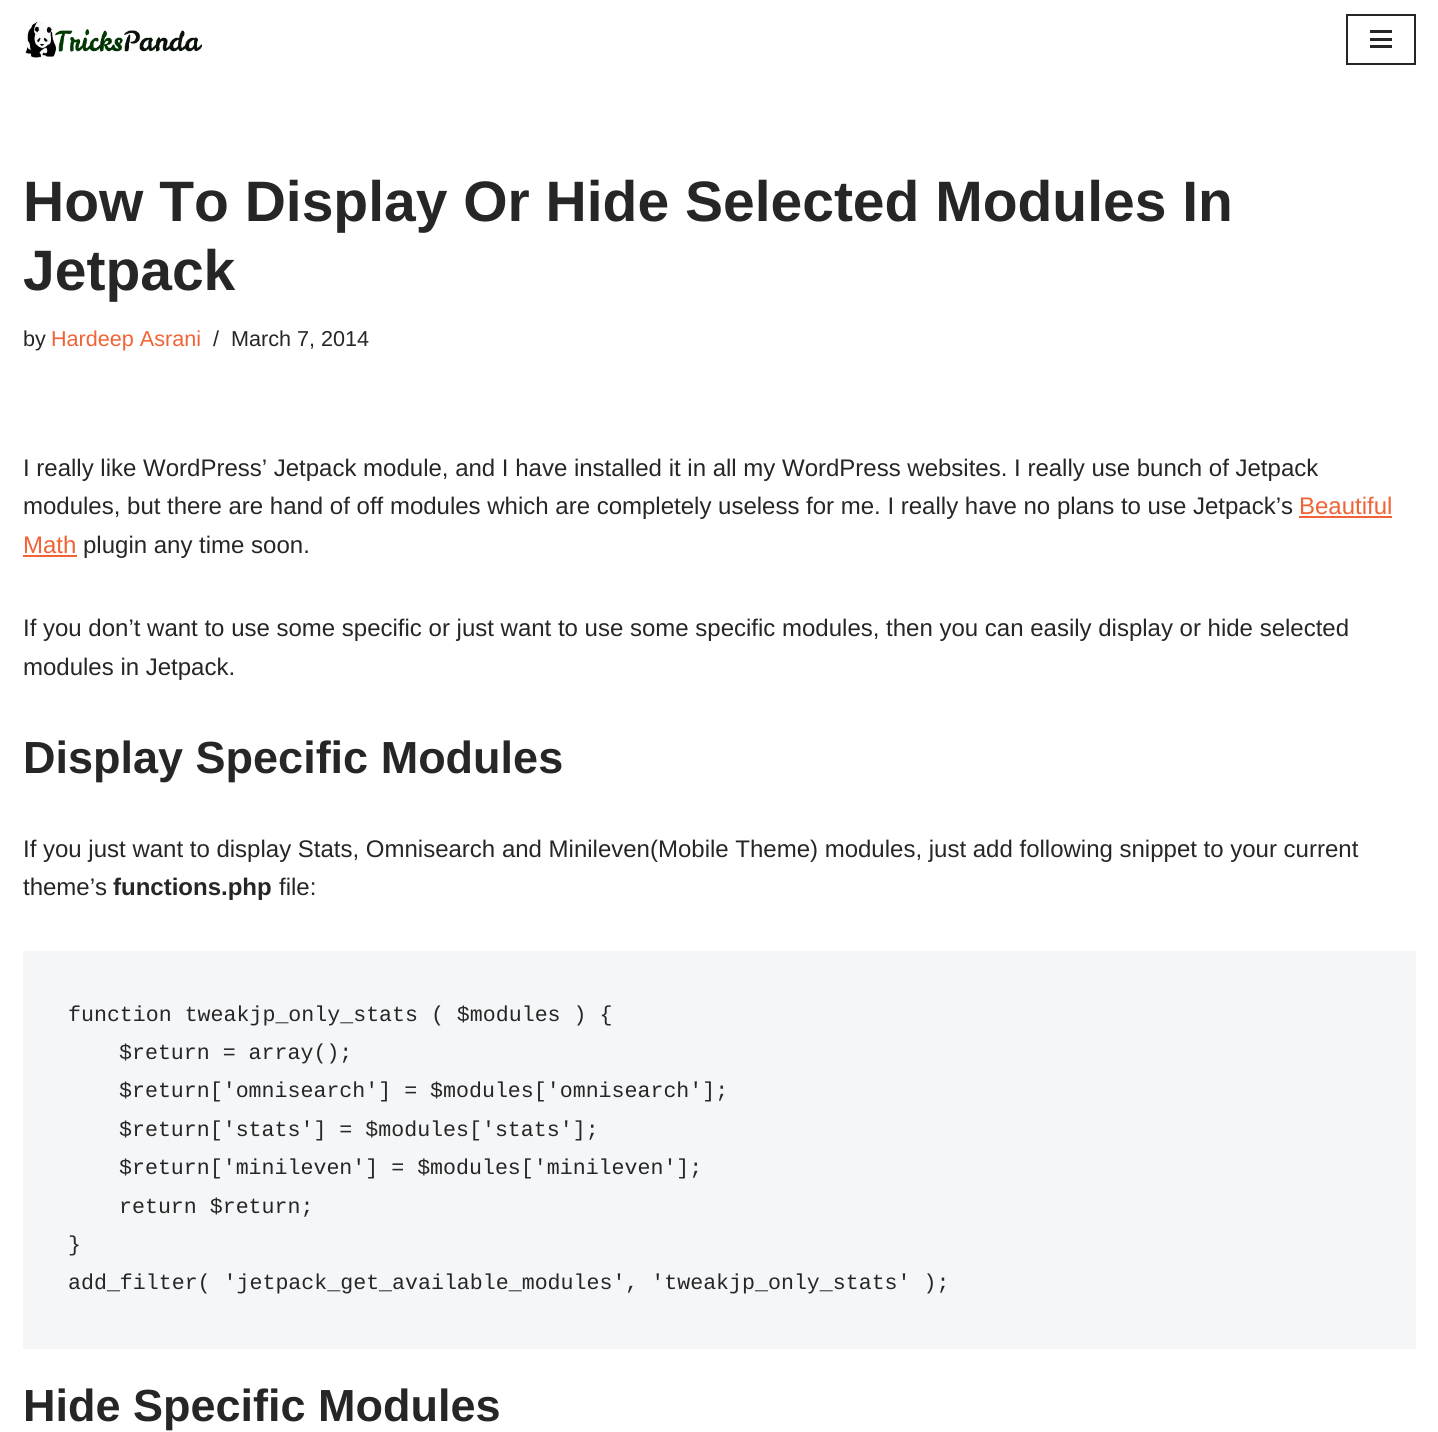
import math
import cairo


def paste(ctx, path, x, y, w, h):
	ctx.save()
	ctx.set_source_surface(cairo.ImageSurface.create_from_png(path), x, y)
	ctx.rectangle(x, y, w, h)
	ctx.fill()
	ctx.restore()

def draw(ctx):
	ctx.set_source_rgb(1, 1, 1)
	ctx.paint()
	paste(ctx, 'media/1.png', 25, 21, 178, 37)
	ctx.rectangle(1347, 15, 68, 49)
	ctx.set_source_rgb(0.153, 0.149, 0.149)
	ctx.stroke()
	ctx.rectangle(1370, 30, 22, 3)
	ctx.rectangle(1370, 38, 22, 3)
	ctx.rectangle(1370, 45, 22, 3)
	ctx.fill()
	ctx.select_font_face('Liberation Sans', cairo.FONT_SLANT_NORMAL, cairo.FONT_WEIGHT_BOLD)
	ctx.set_font_size(57)
	ctx.move_to(23, 221)
	ctx.show_text('How To Display Or Hide Selected Modules In')
	ctx.move_to(23, 290)
	ctx.show_text('Jetpack')
	ctx.select_font_face('Liberation Sans')
	ctx.set_font_size(21.6)
	ctx.move_to(23, 346)
	ctx.show_text('by')
	ctx.set_source_rgb(0.945, 0.388, 0.204)
	ctx.move_to(51, 346)
	ctx.show_text('Hardeep Asrani')
	ctx.set_source_rgb(0.153, 0.149, 0.149)
	ctx.move_to(213, 346)
	ctx.show_text('/')
	ctx.move_to(231, 346)
	ctx.show_text('March 7, 2014')
	ctx.set_font_size(24)
	ctx.move_to(23, 476)
	ctx.show_text('I really like WordPress’ Jetpack module, and I have installed it in all my WordPress websites. I really use bunch of Jetpack')
	ctx.move_to(23, 514)
	ctx.show_text('modules, but there are hand of off modules which are completely useless for me. I really have no plans to use Jetpack’s')
	ctx.set_source_rgb(0.945, 0.388, 0.204)
	ctx.move_to(1299, 514)
	ctx.show_text('Beautiful')
	ctx.rectangle(1299, 516, 93, 2)
	ctx.fill()
	ctx.move_to(23, 553)
	ctx.show_text('Math')
	ctx.rectangle(23, 555, 54, 2)
	ctx.fill()
	ctx.set_source_rgb(0.153, 0.149, 0.149)
	for x, y, s in [
		(83, 553, 'plugin any time soon.'),
		(23, 636, 'If you don’t want to use some specific or just want to use some specific modules, then you can easily display or hide selected'),
		(23, 675, 'modules in Jetpack.'),
	]:
		ctx.move_to(x, y)
		ctx.show_text(s)
	ctx.select_font_face('Liberation Sans', cairo.FONT_SLANT_NORMAL, cairo.FONT_WEIGHT_BOLD)
	ctx.set_font_size(45)
	ctx.move_to(23, 773)
	ctx.show_text('Display Specific Modules')
	ctx.select_font_face('Liberation Sans')
	ctx.set_font_size(24)
	ctx.move_to(23, 857)
	ctx.show_text('If you just want to display Stats, Omnisearch and Minileven(Mobile Theme) modules, just add following snippet to your current')
	ctx.move_to(23, 895)
	ctx.show_text('theme’s')
	ctx.select_font_face('Liberation Sans', cairo.FONT_SLANT_NORMAL, cairo.FONT_WEIGHT_BOLD)
	ctx.move_to(113, 895)
	ctx.show_text('functions.php')
	ctx.select_font_face('Liberation Sans')
	ctx.move_to(279, 895)
	ctx.show_text('file:')
	ctx.set_source_rgb(0.957, 0.961, 0.969)
	ctx.rectangle(23, 951, 1393, 398)
	ctx.fill()
	ctx.select_font_face('Liberation Mono')
	ctx.set_font_size(21.6)
	ctx.set_source_rgb(0.153, 0.149, 0.149)
	for x, y, s in [
		(68, 1021, 'function tweakjp_only_stats ( $modules ) {'),
		(119, 1059, '$return = array();'),
		(119, 1097, '$return[\'omnisearch\'] = $modules[\'omnisearch\'];'),
		(119, 1136, '$return[\'stats\'] = $modules[\'stats\'];'),
		(119, 1174, '$return[\'minileven\'] = $modules[\'minileven\'];'),
		(119, 1213, 'return $return;'),
		(68, 1251, '}'),
		(68, 1289, 'add_filter( \'jetpack_get_available_modules\', \'tweakjp_only_stats\' );'),
	]:
		ctx.move_to(x, y)
		ctx.show_text(s)
	ctx.select_font_face('Liberation Sans', cairo.FONT_SLANT_NORMAL, cairo.FONT_WEIGHT_BOLD)
	ctx.set_font_size(45)
	ctx.move_to(23, 1421)
	ctx.show_text('Hide Specific Modules')


surface = cairo.ImageSurface(cairo.FORMAT_RGB24, 1438, 1432)
ctx = cairo.Context(surface)
options = cairo.FontOptions()
options.set_hint_metrics(cairo.HINT_METRICS_OFF)
options.set_hint_style(cairo.HINT_STYLE_NONE)
ctx.set_font_options(options)
ctx.set_miter_limit(4)
draw(ctx)
surface.write_to_png('image.png')
